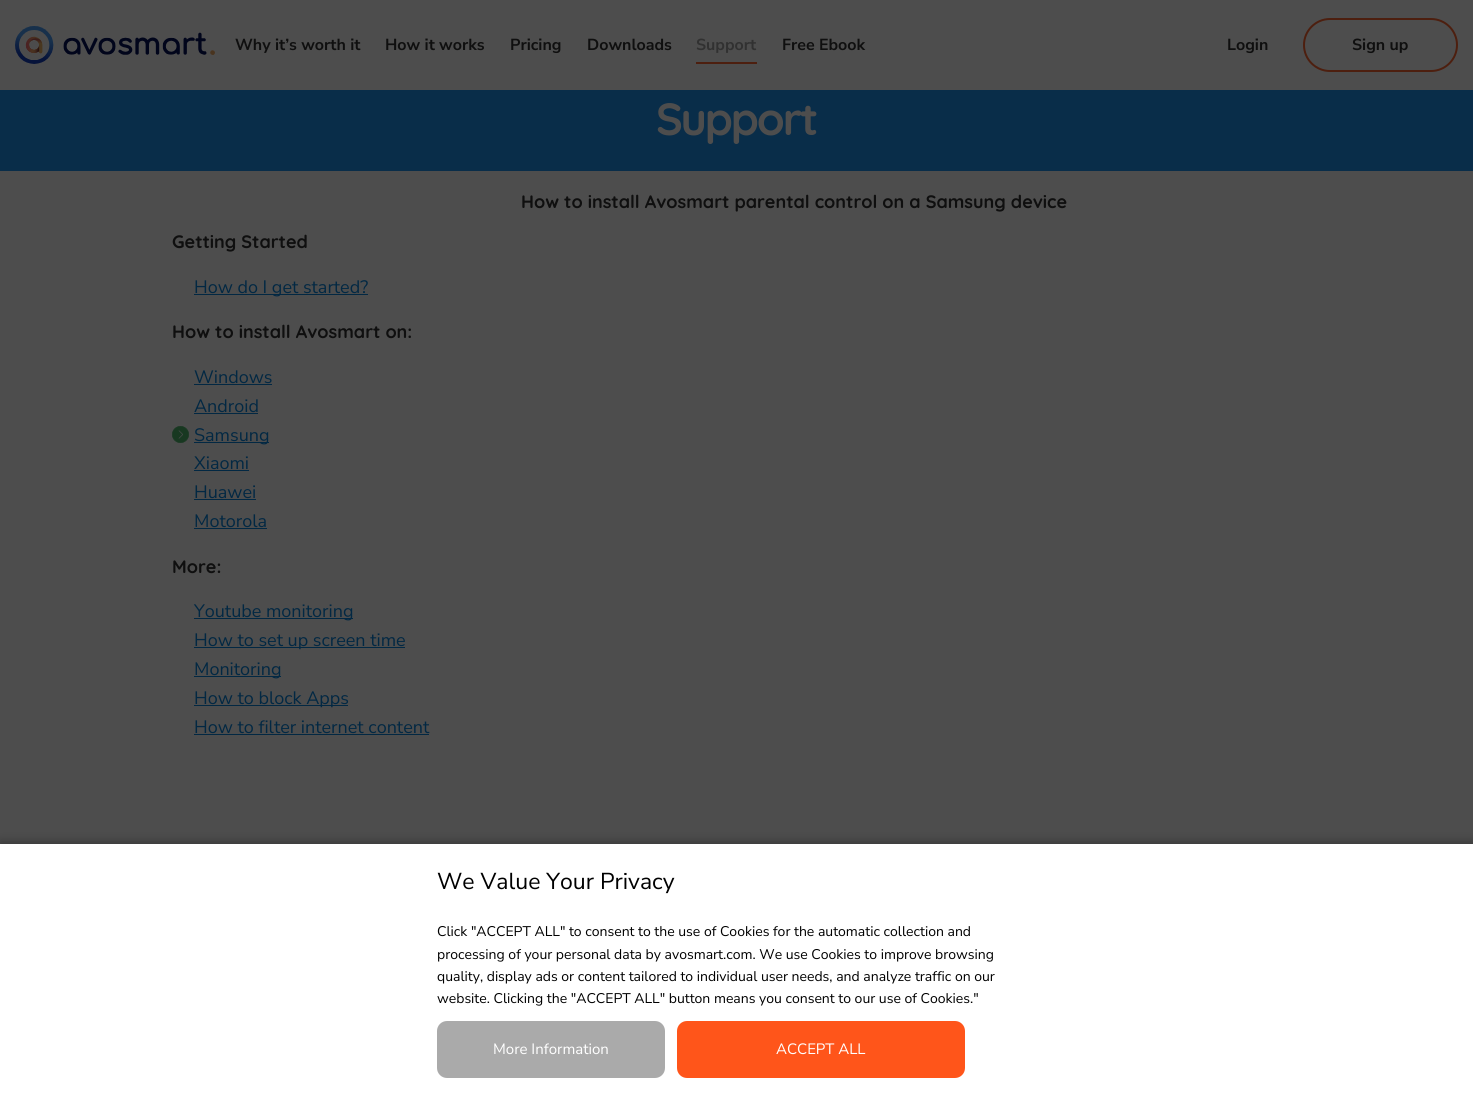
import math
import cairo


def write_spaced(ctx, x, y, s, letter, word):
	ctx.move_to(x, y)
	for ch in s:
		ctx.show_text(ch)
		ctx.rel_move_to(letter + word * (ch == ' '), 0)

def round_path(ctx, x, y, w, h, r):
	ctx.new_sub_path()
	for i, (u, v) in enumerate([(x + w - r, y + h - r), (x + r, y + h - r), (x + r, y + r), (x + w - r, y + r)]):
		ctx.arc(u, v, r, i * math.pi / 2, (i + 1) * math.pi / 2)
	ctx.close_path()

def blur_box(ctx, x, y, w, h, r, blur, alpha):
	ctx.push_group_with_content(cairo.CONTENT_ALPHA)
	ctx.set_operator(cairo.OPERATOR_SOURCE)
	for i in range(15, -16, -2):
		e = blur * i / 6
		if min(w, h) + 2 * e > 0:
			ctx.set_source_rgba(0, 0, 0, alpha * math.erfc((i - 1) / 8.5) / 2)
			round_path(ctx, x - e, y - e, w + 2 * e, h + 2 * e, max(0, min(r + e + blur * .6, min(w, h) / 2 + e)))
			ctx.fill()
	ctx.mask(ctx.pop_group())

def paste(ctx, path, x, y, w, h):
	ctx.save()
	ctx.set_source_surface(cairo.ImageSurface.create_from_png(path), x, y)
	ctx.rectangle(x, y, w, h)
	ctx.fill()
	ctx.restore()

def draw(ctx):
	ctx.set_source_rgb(0.302, 0.302, 0.302)
	ctx.paint()
	paste(ctx, 'media/1.png', 15, 26, 200, 38)
	ctx.select_font_face('Nunito Sans', cairo.FONT_SLANT_NORMAL, cairo.FONT_WEIGHT_BOLD)
	ctx.set_font_size(16)
	ctx.set_source_rgb(0.059, 0.059, 0.059)
	for x, y, s in [
		(235, 50, 'Why it’s worth it'),
		(385, 50, 'How it works'),
		(510, 50, 'Pricing'),
		(587, 50, 'Downloads'),
	]:
		ctx.move_to(x, y)
		ctx.show_text(s)
	ctx.set_source_rgb(0.192, 0.192, 0.192)
	ctx.move_to(696, 50)
	ctx.show_text('Support')
	ctx.set_source_rgb(0.302, 0.122, 0.059)
	ctx.rectangle(696, 62, 61, 2)
	ctx.fill()
	ctx.set_source_rgb(0.059, 0.059, 0.059)
	ctx.move_to(782, 50)
	ctx.show_text('Free Ebook')
	ctx.move_to(1227, 50)
	ctx.show_text('Login')
	round_path(ctx, 1304, 19, 153, 52, 26)
	ctx.set_source_rgb(0.302, 0.122, 0.059)
	ctx.stroke()
	ctx.set_source_rgb(0.059, 0.059, 0.059)
	ctx.move_to(1352, 50)
	ctx.show_text('Sign up')
	ctx.set_source_rgb(0.039, 0.176, 0.286)
	ctx.rectangle(0, 90, 1473, 81)
	ctx.fill()
	ctx.select_font_face('Quicksand', cairo.FONT_SLANT_NORMAL, cairo.FONT_WEIGHT_BOLD)
	ctx.set_font_size(45)
	ctx.set_source_rgb(0.302, 0.302, 0.302)
	write_spaced(ctx, 656, 135, 'Support', -2.25, 0)
	ctx.set_font_size(18)
	ctx.set_source_rgb(0.059, 0.059, 0.059)
	ctx.move_to(521, 208)
	ctx.show_text('How to install Avosmart parental control on a Samsung device')
	ctx.move_to(172, 248)
	ctx.show_text('Getting Started')
	ctx.set_source_rgb(0.008, 0.157, 0.263)
	ctx.rectangle(194, 294, 174, 1)
	ctx.fill()
	ctx.select_font_face('Nunito Sans')
	ctx.move_to(194, 293)
	ctx.show_text('How do I get started?')
	ctx.select_font_face('Quicksand', cairo.FONT_SLANT_NORMAL, cairo.FONT_WEIGHT_BOLD)
	ctx.set_source_rgb(0.059, 0.059, 0.059)
	ctx.move_to(172, 338)
	ctx.show_text('How to install Avosmart on:')
	ctx.select_font_face('Nunito Sans')
	ctx.set_source_rgb(0.008, 0.157, 0.263)
	ctx.move_to(194, 383)
	ctx.show_text('Windows')
	ctx.rectangle(194, 384, 78, 1)
	ctx.fill()
	ctx.move_to(194, 412)
	ctx.show_text('Android')
	ctx.rectangle(194, 413, 64, 1)
	ctx.fill()
	paste(ctx, 'media/2.png', 172, 426, 17, 17)
	ctx.rectangle(194, 442, 75, 1)
	ctx.fill()
	ctx.move_to(194, 441)
	ctx.show_text('Samsung')
	ctx.move_to(194, 469)
	ctx.show_text('Xiaomi')
	ctx.rectangle(194, 470, 55, 1)
	ctx.fill()
	ctx.move_to(194, 498)
	ctx.show_text('Huawei')
	ctx.rectangle(194, 499, 62, 1)
	ctx.fill()
	ctx.move_to(194, 527)
	ctx.show_text('Motorola')
	ctx.rectangle(194, 528, 73, 1)
	ctx.fill()
	ctx.select_font_face('Quicksand', cairo.FONT_SLANT_NORMAL, cairo.FONT_WEIGHT_BOLD)
	ctx.set_source_rgb(0.059, 0.059, 0.059)
	ctx.move_to(172, 573)
	ctx.show_text('More:')
	ctx.set_source_rgb(0.008, 0.157, 0.263)
	ctx.rectangle(194, 618, 159, 1)
	ctx.fill()
	ctx.select_font_face('Nunito Sans')
	ctx.move_to(194, 617)
	ctx.show_text('Youtube monitoring')
	ctx.rectangle(194, 647, 211, 1)
	ctx.fill()
	ctx.move_to(194, 646)
	ctx.show_text('How to set up screen time')
	ctx.rectangle(194, 676, 87, 1)
	ctx.fill()
	ctx.move_to(194, 675)
	ctx.show_text('Monitoring')
	ctx.rectangle(194, 705, 154, 1)
	ctx.fill()
	ctx.move_to(194, 704)
	ctx.show_text('How to block Apps')
	ctx.move_to(194, 733)
	ctx.show_text('How to filter internet content')
	ctx.rectangle(194, 734, 235, 1)
	ctx.fill()
	ctx.set_source_rgb(0, 0, 0)
	blur_box(ctx, 0, 842, 1473, 254, 0, 5, 0.3)
	ctx.set_source_rgb(1, 1, 1)
	ctx.rectangle(0, 844, 1473, 254)
	ctx.fill()
	ctx.set_font_size(23)
	ctx.set_source_rgb(0, 0, 0)
	ctx.move_to(437, 889)
	ctx.show_text('We Value Your Privacy')
	ctx.set_font_size(14)
	for x, y, s in [
		(437, 936, 'Click "ACCEPT ALL" to consent to the use of Cookies for the automatic collection and'),
		(437, 959, 'processing of your personal data by avosmart.com. We use Cookies to improve browsing'),
		(437, 981, 'quality, display ads or content tailored to individual user needs, and analyze traffic on our'),
		(437, 1003, 'website. Clicking the "ACCEPT ALL" button means you consent to our use of Cookies."'),
	]:
		ctx.move_to(x, y)
		ctx.show_text(s)
	ctx.set_source_rgb(0.667, 0.667, 0.667)
	round_path(ctx, 437, 1021, 228, 57, 10)
	ctx.fill()
	ctx.set_font_size(15)
	ctx.set_source_rgb(1, 1, 1)
	ctx.move_to(493, 1054)
	ctx.show_text('More Information')
	ctx.set_source_rgb(1, 0.333, 0.102)
	round_path(ctx, 677, 1021, 288, 57, 10)
	ctx.fill()
	ctx.set_source_rgb(1, 1, 1)
	ctx.move_to(776, 1054)
	ctx.show_text('ACCEPT ALL')


surface = cairo.ImageSurface(cairo.FORMAT_RGB24, 1473, 1098)
ctx = cairo.Context(surface)
options = cairo.FontOptions()
options.set_hint_metrics(cairo.HINT_METRICS_OFF)
options.set_hint_style(cairo.HINT_STYLE_NONE)
ctx.set_font_options(options)
ctx.set_miter_limit(4)
draw(ctx)
surface.write_to_png('image.png')
